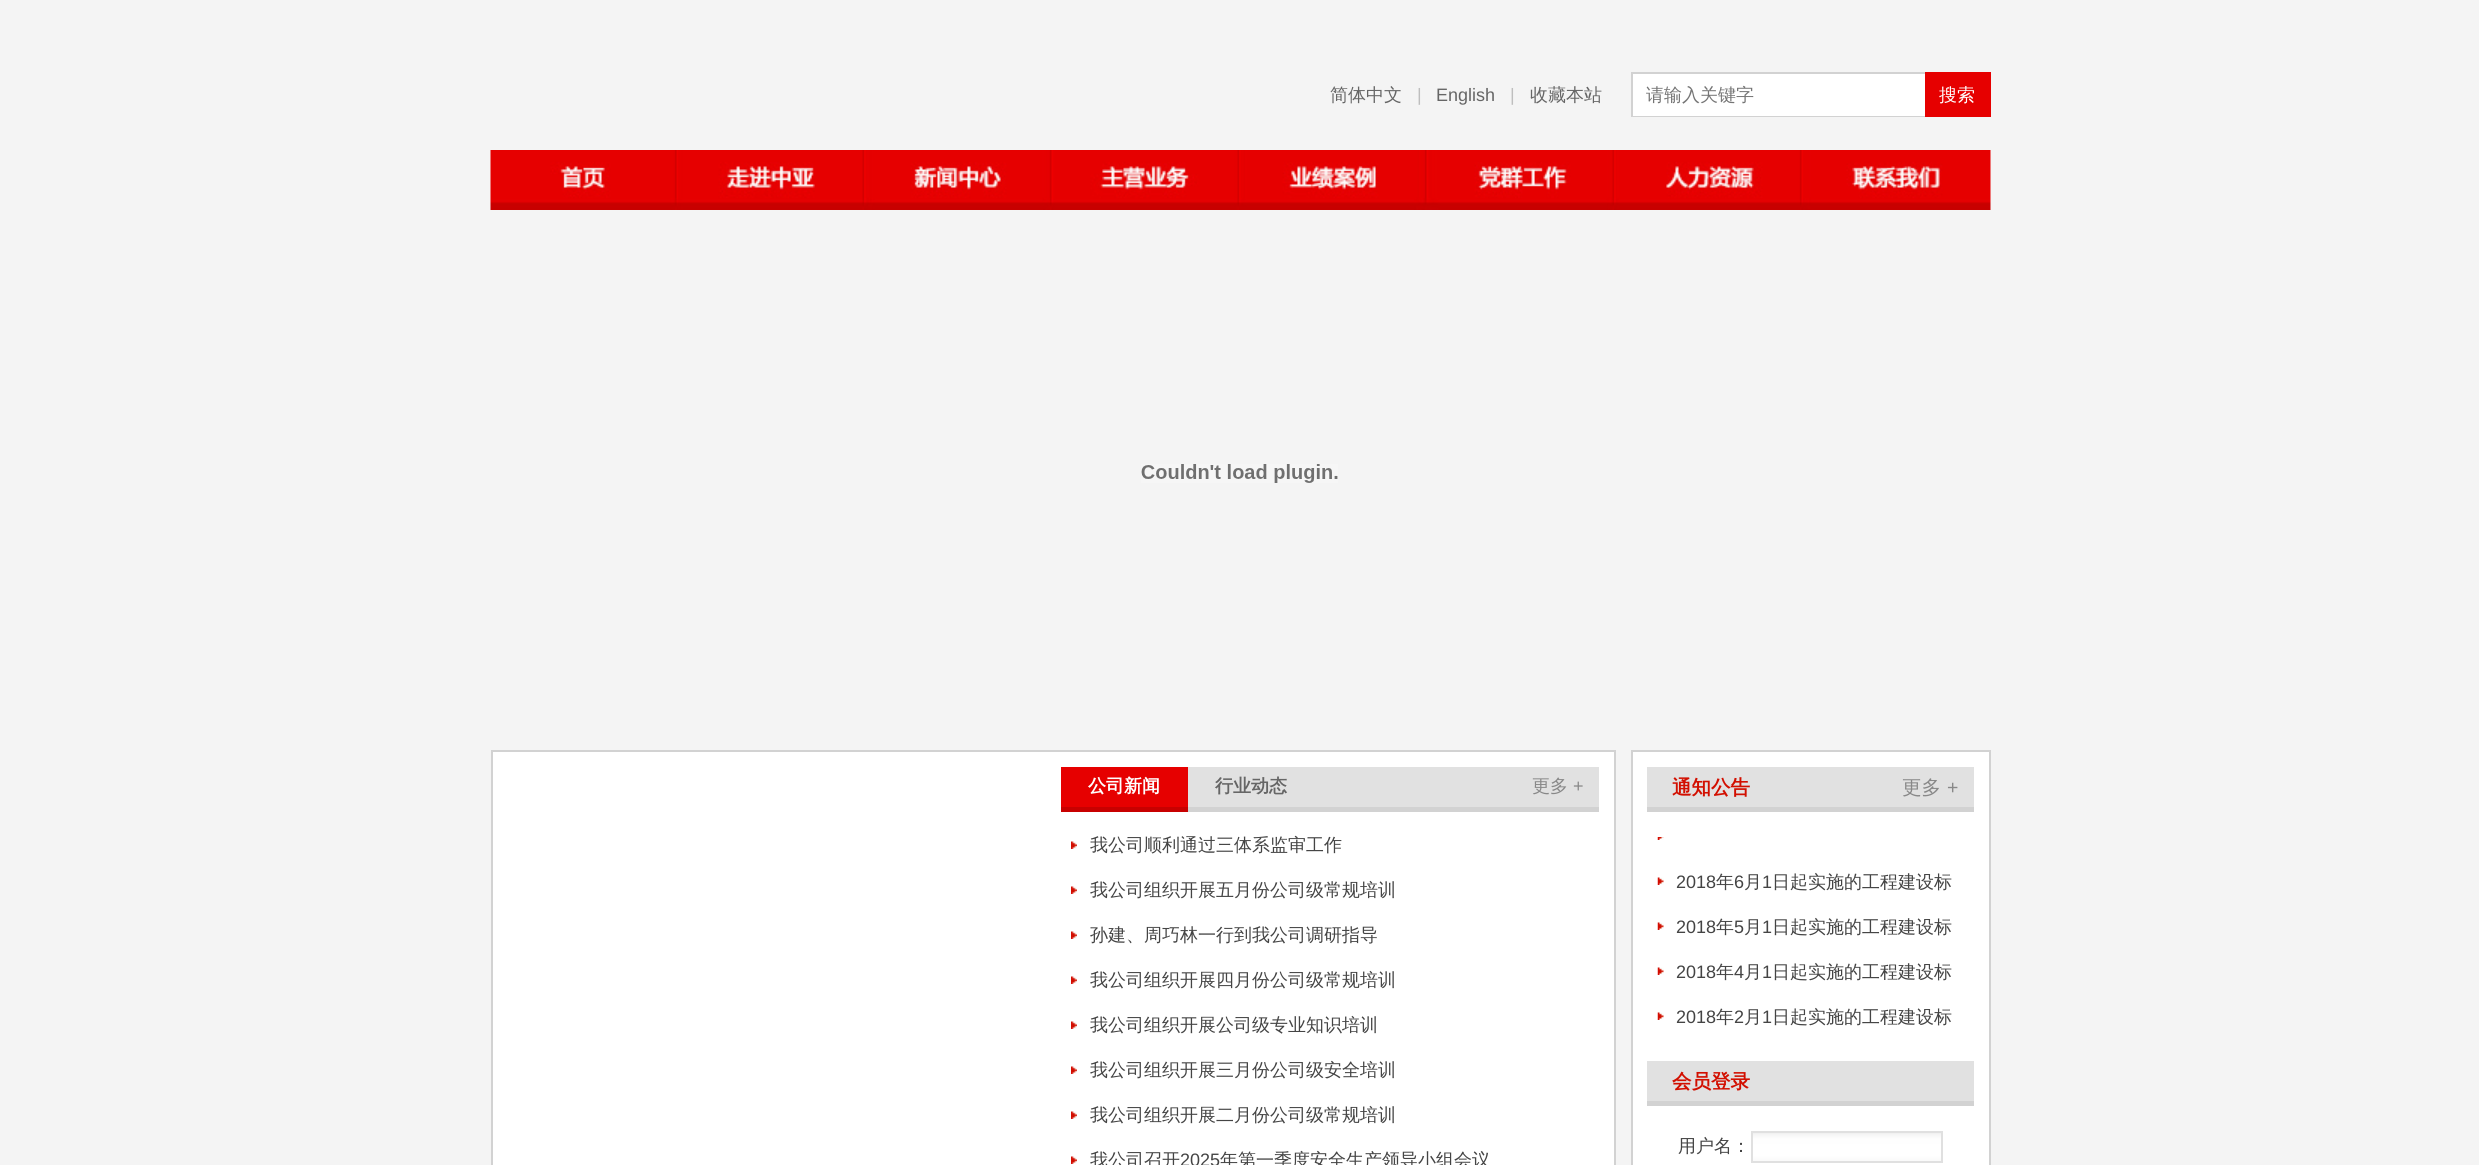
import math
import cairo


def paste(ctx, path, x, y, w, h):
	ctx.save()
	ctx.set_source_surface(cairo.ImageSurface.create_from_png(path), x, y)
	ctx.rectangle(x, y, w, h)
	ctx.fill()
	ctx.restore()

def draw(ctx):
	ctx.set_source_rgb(0.957, 0.957, 0.957)
	ctx.paint()
	ctx.select_font_face('WenQuanYi Zen Hei Medium')
	ctx.set_font_size(18)
	ctx.set_source_rgb(0.4, 0.4, 0.4)
	ctx.move_to(1330, 101)
	ctx.show_text('简体中文')
	ctx.select_font_face('Liberation Sans')
	ctx.set_source_rgb(0.745, 0.745, 0.745)
	ctx.move_to(1417, 101)
	ctx.show_text('|')
	ctx.set_source_rgb(0.4, 0.4, 0.4)
	ctx.move_to(1436, 101)
	ctx.show_text('English')
	ctx.set_source_rgb(0.745, 0.745, 0.745)
	ctx.move_to(1510, 101)
	ctx.show_text('|')
	ctx.select_font_face('WenQuanYi Zen Hei Medium')
	ctx.set_source_rgb(0.4, 0.4, 0.4)
	ctx.move_to(1530, 101)
	ctx.show_text('收藏本站')
	ctx.set_source_rgb(1, 1, 1)
	ctx.rectangle(1633, 74, 292, 42)
	ctx.fill()
	ctx.set_source_rgb(0.824, 0.824, 0.824)
	ctx.rectangle(1631, 72, 294, 2)
	ctx.rectangle(1631, 116, 294, 1)
	ctx.rectangle(1631, 72, 2, 45)
	ctx.fill()
	ctx.set_source_rgb(0.459, 0.459, 0.459)
	ctx.move_to(1646, 101)
	ctx.show_text('请输入关键字')
	ctx.set_source_rgb(0.902, 0, 0)
	ctx.rectangle(1925, 72, 66, 45)
	ctx.fill()
	ctx.set_source_rgb(1, 1, 1)
	ctx.move_to(1939, 101)
	ctx.show_text('搜索')
	paste(ctx, 'media/1.png', 490, 150, 1501, 60)
	paste(ctx, 'media/2.png', 1141, 464, 197, 19)
	ctx.rectangle(492, 751, 1123, 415)
	ctx.fill_preserve()
	ctx.set_source_rgb(0.824, 0.824, 0.824)
	ctx.stroke()
	ctx.set_source_rgb(0.882, 0.882, 0.882)
	ctx.rectangle(1188, 767, 411, 40)
	ctx.fill()
	ctx.set_source_rgb(0.824, 0.824, 0.824)
	ctx.rectangle(1188, 807, 411, 5)
	ctx.fill()
	ctx.set_source_rgb(0.902, 0, 0)
	ctx.rectangle(1061, 767, 127, 40)
	ctx.fill()
	ctx.set_source_rgb(0.784, 0, 0)
	ctx.rectangle(1061, 807, 127, 5)
	ctx.fill()
	ctx.select_font_face('WenQuanYi Zen Hei', cairo.FONT_SLANT_NORMAL, cairo.FONT_WEIGHT_BOLD)
	ctx.set_source_rgb(1, 1, 1)
	ctx.move_to(1088, 792)
	ctx.show_text('公司新闻')
	ctx.set_source_rgb(0.4, 0.4, 0.4)
	ctx.move_to(1215, 792)
	ctx.show_text('行业动态')
	ctx.select_font_face('WenQuanYi Zen Hei Medium')
	ctx.set_source_rgb(0.533, 0.533, 0.533)
	ctx.move_to(1532, 792)
	ctx.show_text('更多')
	ctx.select_font_face('Liberation Sans')
	ctx.move_to(1573, 792)
	ctx.show_text('+')
	paste(ctx, 'media/3.png', 1071, 841, 6, 8)
	ctx.select_font_face('WenQuanYi Zen Hei Medium')
	ctx.set_source_rgb(0.267, 0.267, 0.267)
	ctx.move_to(1090, 851)
	ctx.show_text('我公司顺利通过三体系监审工作')
	paste(ctx, 'media/3.png', 1071, 886, 6, 8)
	ctx.move_to(1090, 896)
	ctx.show_text('我公司组织开展五月份公司级常规培训')
	paste(ctx, 'media/3.png', 1071, 931, 6, 8)
	ctx.move_to(1090, 941)
	ctx.show_text('孙建、周巧林一行到我公司调研指导')
	paste(ctx, 'media/3.png', 1071, 976, 6, 8)
	ctx.move_to(1090, 986)
	ctx.show_text('我公司组织开展四月份公司级常规培训')
	paste(ctx, 'media/3.png', 1071, 1021, 6, 8)
	ctx.move_to(1090, 1031)
	ctx.show_text('我公司组织开展公司级专业知识培训')
	paste(ctx, 'media/3.png', 1071, 1066, 6, 8)
	ctx.move_to(1090, 1076)
	ctx.show_text('我公司组织开展三月份公司级安全培训')
	paste(ctx, 'media/3.png', 1071, 1111, 6, 8)
	ctx.move_to(1090, 1121)
	ctx.show_text('我公司组织开展二月份公司级常规培训')
	paste(ctx, 'media/3.png', 1071, 1156, 6, 8)
	ctx.move_to(1090, 1166)
	ctx.show_text('我公司召开')
	ctx.select_font_face('Liberation Sans')
	ctx.move_to(1180, 1166)
	ctx.show_text('2025')
	ctx.select_font_face('WenQuanYi Zen Hei Medium')
	ctx.move_to(1220, 1166)
	ctx.show_text('年第一季度安全生产领导小组会议')
	ctx.set_source_rgb(1, 1, 1)
	ctx.rectangle(1632, 751, 358, 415)
	ctx.fill_preserve()
	ctx.set_source_rgb(0.824, 0.824, 0.824)
	ctx.stroke()
	ctx.set_source_rgb(0.882, 0.882, 0.882)
	ctx.rectangle(1647, 767, 327, 40)
	ctx.fill()
	ctx.set_source_rgb(0.824, 0.824, 0.824)
	ctx.rectangle(1647, 807, 327, 5)
	ctx.fill()
	ctx.select_font_face('WenQuanYi Zen Hei', cairo.FONT_SLANT_NORMAL, cairo.FONT_WEIGHT_BOLD)
	ctx.set_font_size(19.5)
	ctx.set_source_rgb(0.824, 0.059, 0)
	ctx.move_to(1672, 794)
	ctx.show_text('通知公告')
	ctx.select_font_face('WenQuanYi Zen Hei Medium')
	ctx.set_source_rgb(0.533, 0.533, 0.533)
	ctx.move_to(1902, 794)
	ctx.show_text('更多')
	ctx.select_font_face('Liberation Sans')
	ctx.move_to(1947, 794)
	ctx.show_text('+')
	paste(ctx, 'media/4.png', 1657, 837, 7, 3)
	paste(ctx, 'media/5.png', 1657, 877, 7, 8)
	ctx.set_font_size(18)
	ctx.set_source_rgb(0.267, 0.267, 0.267)
	ctx.move_to(1676, 888)
	ctx.show_text('2018')
	ctx.select_font_face('WenQuanYi Zen Hei Medium')
	ctx.move_to(1716, 888)
	ctx.show_text('年')
	ctx.select_font_face('Liberation Sans')
	ctx.move_to(1734, 888)
	ctx.show_text('6')
	ctx.select_font_face('WenQuanYi Zen Hei Medium')
	ctx.move_to(1744, 888)
	ctx.show_text('月')
	ctx.select_font_face('Liberation Sans')
	ctx.move_to(1762, 888)
	ctx.show_text('1')
	ctx.select_font_face('WenQuanYi Zen Hei Medium')
	ctx.move_to(1772, 888)
	ctx.show_text('日起实施的工程建设标')
	paste(ctx, 'media/5.png', 1657, 922, 7, 8)
	ctx.select_font_face('Liberation Sans')
	ctx.move_to(1676, 933)
	ctx.show_text('2018')
	ctx.select_font_face('WenQuanYi Zen Hei Medium')
	ctx.move_to(1716, 933)
	ctx.show_text('年')
	ctx.select_font_face('Liberation Sans')
	ctx.move_to(1734, 933)
	ctx.show_text('5')
	ctx.select_font_face('WenQuanYi Zen Hei Medium')
	ctx.move_to(1744, 933)
	ctx.show_text('月')
	ctx.select_font_face('Liberation Sans')
	ctx.move_to(1762, 933)
	ctx.show_text('1')
	ctx.select_font_face('WenQuanYi Zen Hei Medium')
	ctx.move_to(1772, 933)
	ctx.show_text('日起实施的工程建设标')
	paste(ctx, 'media/5.png', 1657, 967, 7, 8)
	ctx.select_font_face('Liberation Sans')
	ctx.move_to(1676, 978)
	ctx.show_text('2018')
	ctx.select_font_face('WenQuanYi Zen Hei Medium')
	ctx.move_to(1716, 978)
	ctx.show_text('年')
	ctx.select_font_face('Liberation Sans')
	ctx.move_to(1734, 978)
	ctx.show_text('4')
	ctx.select_font_face('WenQuanYi Zen Hei Medium')
	ctx.move_to(1744, 978)
	ctx.show_text('月')
	ctx.select_font_face('Liberation Sans')
	ctx.move_to(1762, 978)
	ctx.show_text('1')
	ctx.select_font_face('WenQuanYi Zen Hei Medium')
	ctx.move_to(1772, 978)
	ctx.show_text('日起实施的工程建设标')
	paste(ctx, 'media/5.png', 1657, 1012, 7, 8)
	ctx.select_font_face('Liberation Sans')
	ctx.move_to(1676, 1023)
	ctx.show_text('2018')
	ctx.select_font_face('WenQuanYi Zen Hei Medium')
	ctx.move_to(1716, 1023)
	ctx.show_text('年')
	ctx.select_font_face('Liberation Sans')
	ctx.move_to(1734, 1023)
	ctx.show_text('2')
	ctx.select_font_face('WenQuanYi Zen Hei Medium')
	ctx.move_to(1744, 1023)
	ctx.show_text('月')
	ctx.select_font_face('Liberation Sans')
	ctx.move_to(1762, 1023)
	ctx.show_text('1')
	ctx.select_font_face('WenQuanYi Zen Hei Medium')
	ctx.move_to(1772, 1023)
	ctx.show_text('日起实施的工程建设标')
	ctx.set_source_rgb(0.882, 0.882, 0.882)
	ctx.rectangle(1647, 1061, 327, 40)
	ctx.fill()
	ctx.set_source_rgb(0.824, 0.824, 0.824)
	ctx.rectangle(1647, 1101, 327, 5)
	ctx.fill()
	ctx.select_font_face('WenQuanYi Zen Hei', cairo.FONT_SLANT_NORMAL, cairo.FONT_WEIGHT_BOLD)
	ctx.set_font_size(19.5)
	ctx.set_source_rgb(0.824, 0.059, 0)
	ctx.move_to(1672, 1088)
	ctx.show_text('会员登录')
	ctx.select_font_face('WenQuanYi Zen Hei Medium')
	ctx.set_font_size(18)
	ctx.set_source_rgb(0.267, 0.267, 0.267)
	ctx.move_to(1678, 1152)
	ctx.show_text('用户名：')
	paste(ctx, 'media/6.png', 1753, 1133, 188, 28)
	ctx.rectangle(1752, 1132, 190, 30)
	ctx.set_source_rgb(0.878, 0.878, 0.878)
	ctx.stroke()


surface = cairo.ImageSurface(cairo.FORMAT_RGB24, 2479, 1165)
ctx = cairo.Context(surface)
options = cairo.FontOptions()
options.set_hint_metrics(cairo.HINT_METRICS_OFF)
options.set_hint_style(cairo.HINT_STYLE_NONE)
ctx.set_font_options(options)
ctx.set_miter_limit(4)
draw(ctx)
surface.write_to_png('image.png')
